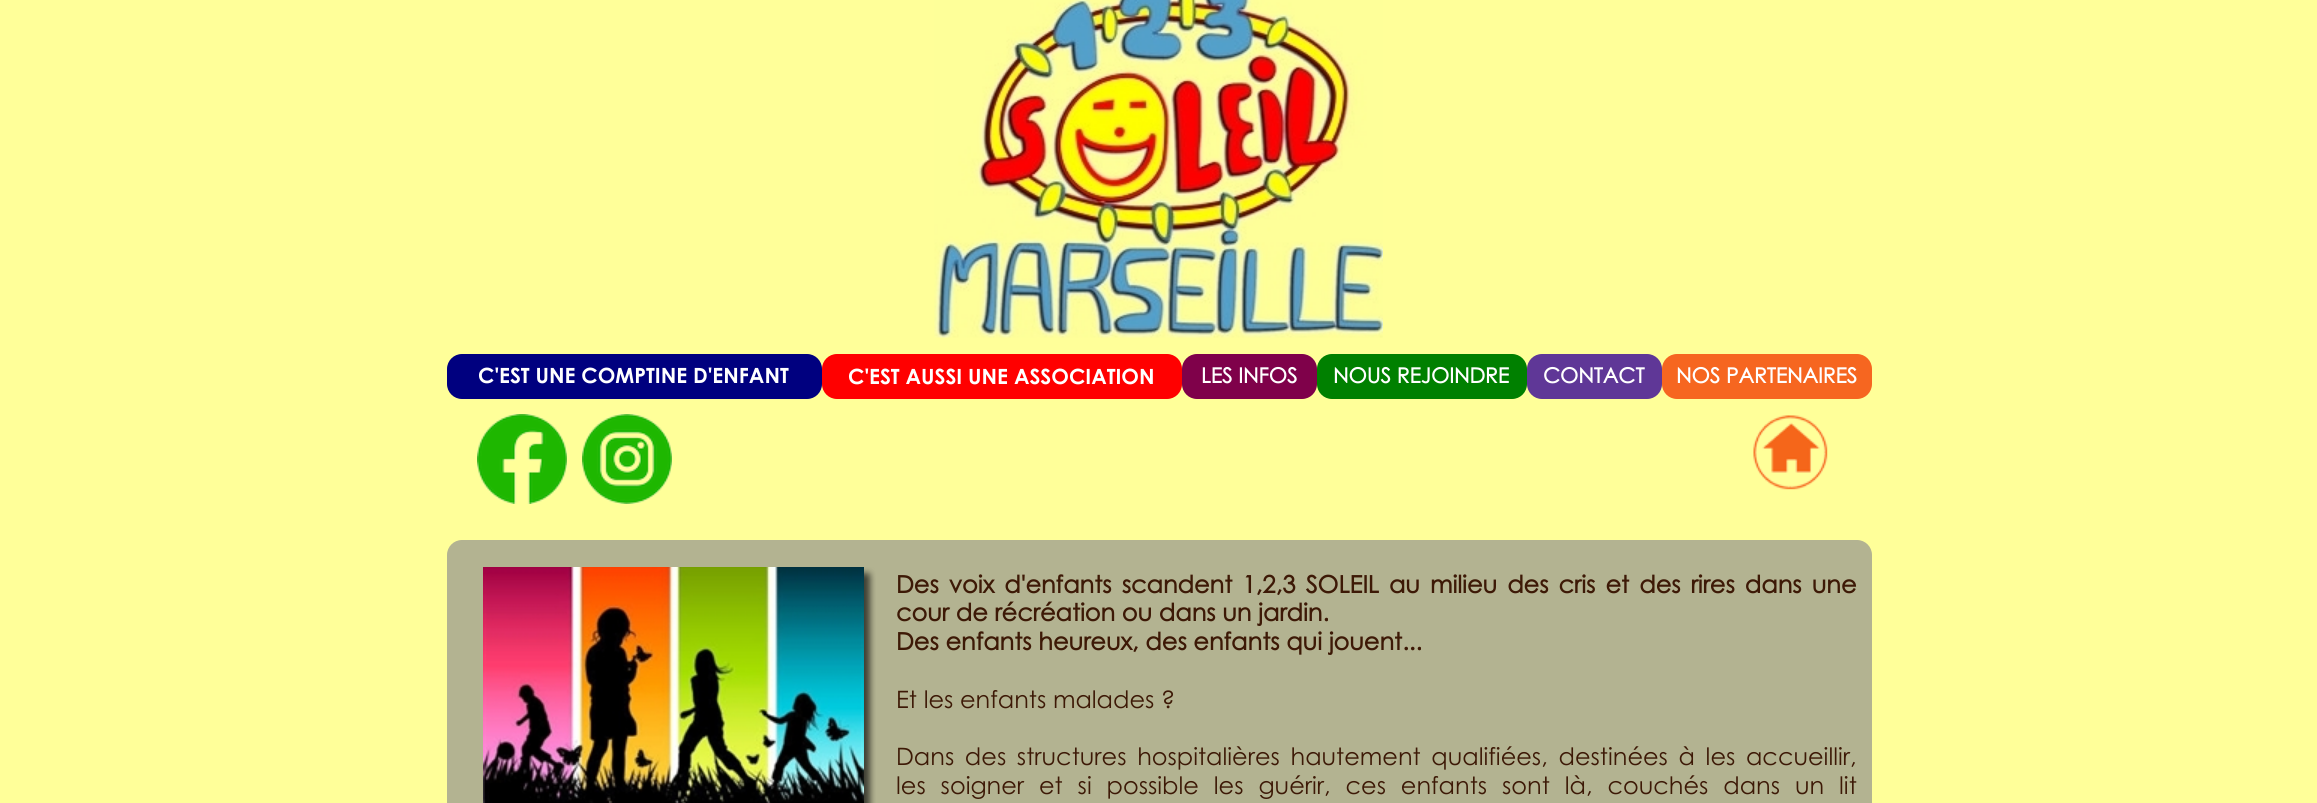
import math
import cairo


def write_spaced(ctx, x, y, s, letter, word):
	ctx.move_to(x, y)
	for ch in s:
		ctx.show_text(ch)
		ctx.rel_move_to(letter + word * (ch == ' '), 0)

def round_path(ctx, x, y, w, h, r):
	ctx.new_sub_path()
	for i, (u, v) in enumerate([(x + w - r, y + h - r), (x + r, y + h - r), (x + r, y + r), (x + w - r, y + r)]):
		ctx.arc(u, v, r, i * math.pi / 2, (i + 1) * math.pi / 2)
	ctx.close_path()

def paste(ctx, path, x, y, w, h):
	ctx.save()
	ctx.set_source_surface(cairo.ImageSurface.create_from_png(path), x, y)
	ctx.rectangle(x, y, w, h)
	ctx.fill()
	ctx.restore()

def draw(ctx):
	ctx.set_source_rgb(1, 1, 0.6)
	ctx.paint()
	paste(ctx, 'media/1.png', 934, 0, 449, 338)
	ctx.set_source_rgb(0, 0, 0.498)
	round_path(ctx, 447, 354, 375, 45, 15)
	ctx.fill()
	ctx.select_font_face('Century Gothic', cairo.FONT_SLANT_NORMAL, cairo.FONT_WEIGHT_BOLD)
	ctx.set_font_size(21)
	ctx.set_source_rgb(1, 1, 1)
	ctx.move_to(478, 383)
	ctx.show_text('C\'EST UNE COMPTINE D\'ENFANT')
	ctx.set_source_rgb(1, 0, 0)
	round_path(ctx, 822, 354, 360, 45, 15)
	ctx.fill()
	ctx.set_source_rgb(1, 1, 1)
	ctx.move_to(848, 384)
	ctx.show_text('C\'EST AUSSI UNE ASSOCIATION')
	ctx.set_source_rgb(0.498, 0.004, 0.29)
	round_path(ctx, 1182, 354, 135, 45, 15)
	ctx.fill()
	ctx.select_font_face('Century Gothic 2', cairo.FONT_SLANT_NORMAL, cairo.FONT_WEIGHT_BOLD)
	ctx.set_source_rgb(1, 1, 1)
	ctx.move_to(1201, 383)
	ctx.show_text('LES INFOS')
	ctx.set_source_rgb(0, 0.502, 0)
	round_path(ctx, 1317, 354, 210, 45, 15)
	ctx.fill()
	ctx.set_source_rgb(1, 1, 1)
	ctx.move_to(1333, 383)
	ctx.show_text('NOUS REJOINDRE')
	ctx.set_source_rgb(0.373, 0.216, 0.592)
	round_path(ctx, 1527, 354, 135, 45, 15)
	ctx.fill()
	ctx.set_source_rgb(1, 1, 1)
	ctx.move_to(1543, 383)
	ctx.show_text('CONTACT')
	ctx.set_source_rgb(0.961, 0.4, 0.125)
	round_path(ctx, 1662, 354, 210, 45, 15)
	ctx.fill()
	ctx.set_source_rgb(1, 1, 1)
	ctx.move_to(1676, 383)
	ctx.show_text('NOS PARTENAIRES')
	paste(ctx, 'media/2.png', 477, 414, 90, 90)
	paste(ctx, 'media/3.png', 582, 414, 90, 90)
	paste(ctx, 'media/4.png', 1753, 415, 75, 75)
	ctx.set_source_rgb(0.702, 0.702, 0.569)
	round_path(ctx, 447, 540, 1425, 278, 15)
	ctx.fill()
	paste(ctx, 'media/5.png', 483, 567, 381, 236)
	paste(ctx, 'media/6.png', 864, 567, 12, 236)
	ctx.set_font_size(24)
	ctx.set_source_rgb(0.239, 0.098, 0.027)
	write_spaced(ctx, 896, 593, 'Des voix d\'enfants scandent 1,2,3 SOLEIL au milieu des cris et des rires dans une', 0, 3.4)
	ctx.move_to(896, 621)
	ctx.show_text('cour de récréation ou dans un jardin.')
	ctx.move_to(896, 650)
	ctx.show_text('Des enfants heureux, des enfants qui jouent...')
	ctx.select_font_face('Century Gothic')
	ctx.move_to(896, 708)
	ctx.show_text('Et les enfants malades ?')
	write_spaced(ctx, 896, 765, 'Dans des structures hospitalières hautement qualifiées, destinées à les accueillir,', 0, 4)
	write_spaced(ctx, 896, 794, 'les soigner et si possible les guérir, ces enfants sont là, couchés dans un lit', 0, 8.25)


surface = cairo.ImageSurface(cairo.FORMAT_RGB24, 2317, 803)
ctx = cairo.Context(surface)
options = cairo.FontOptions()
options.set_hint_metrics(cairo.HINT_METRICS_OFF)
options.set_hint_style(cairo.HINT_STYLE_NONE)
ctx.set_font_options(options)
ctx.set_miter_limit(4)
draw(ctx)
surface.write_to_png('image.png')
